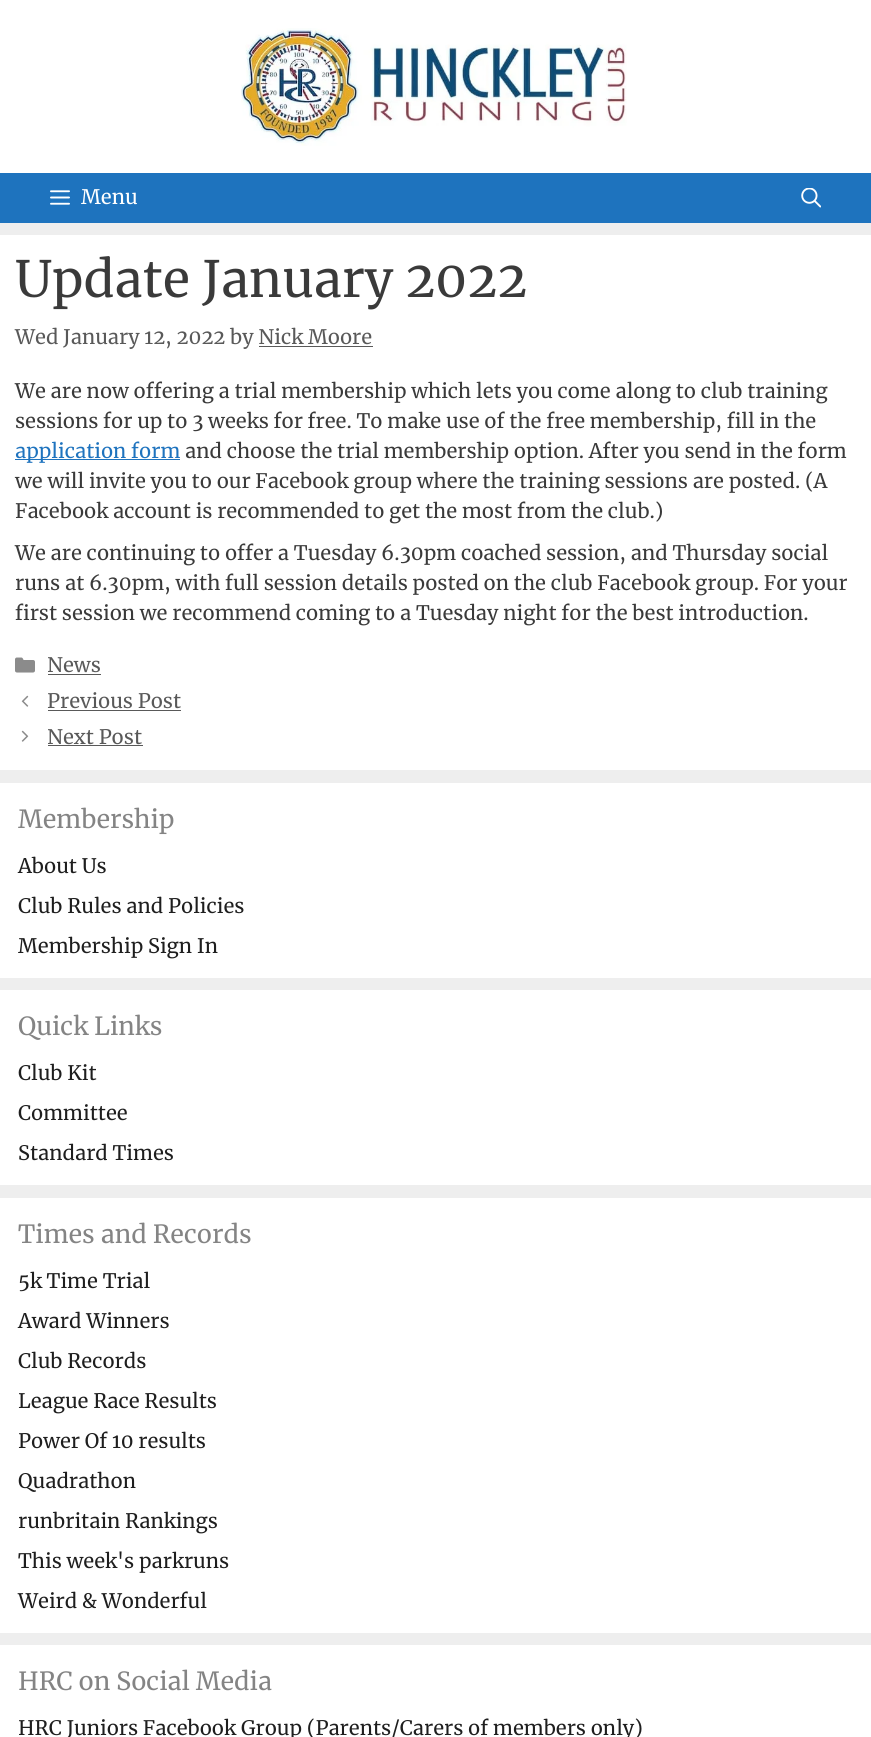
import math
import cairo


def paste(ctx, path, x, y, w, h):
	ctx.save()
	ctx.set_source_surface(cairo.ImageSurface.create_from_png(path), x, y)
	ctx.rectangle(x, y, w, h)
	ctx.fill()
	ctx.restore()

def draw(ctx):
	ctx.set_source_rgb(0.933, 0.933, 0.933)
	ctx.paint()
	ctx.set_source_rgb(1, 1, 1)
	ctx.rectangle(0, 0, 871, 173)
	ctx.fill()
	paste(ctx, 'media/1.png', 241, 28, 386, 118)
	ctx.set_source_rgb(0.118, 0.451, 0.745)
	ctx.rectangle(0, 173, 871, 50)
	ctx.fill()
	paste(ctx, 'media/2.png', 50, 190, 20, 15)
	ctx.select_font_face('Merriweather')
	ctx.set_font_size(20)
	ctx.set_source_rgb(1, 1, 1)
	ctx.move_to(81, 204)
	ctx.show_text('Menu')
	paste(ctx, 'media/3.png', 801, 188, 20, 20)
	ctx.rectangle(0, 235, 871, 535)
	ctx.fill()
	ctx.set_font_size(50)
	ctx.set_source_rgb(0.227, 0.227, 0.227)
	ctx.move_to(15, 297)
	ctx.show_text('Update January 2022')
	ctx.set_font_size(20)
	ctx.set_source_rgb(0.349, 0.349, 0.349)
	ctx.move_to(15, 344)
	ctx.show_text('Wed January 12, 2022 by Nick Moore')
	ctx.rectangle(259, 346, 114, 1)
	ctx.fill()
	ctx.set_source_rgb(0.227, 0.227, 0.227)
	ctx.move_to(15, 398)
	ctx.show_text('We are now offering a trial membership which lets you come along to club training')
	ctx.move_to(15, 428)
	ctx.show_text('sessions for up to 3 weeks for free. To make use of the free membership, fill in the')
	ctx.set_source_rgb(0.118, 0.451, 0.745)
	ctx.rectangle(15, 459, 165, 1)
	ctx.fill()
	ctx.move_to(15, 458)
	ctx.show_text('application form')
	ctx.set_source_rgb(0.227, 0.227, 0.227)
	for x, y, s in [
		(185, 458, 'and choose the trial membership option. After you send in the form'),
		(15, 488, 'we will invite you to our Facebook group where the training sessions are posted. (A'),
		(15, 518, 'Facebook account is recommended to get the most from the club.)'),
		(15, 560, 'We are continuing to offer a Tuesday 6.30pm coached session, and Thursday social'),
		(15, 590, 'runs at 6.30pm, with full session details posted on the club Facebook group. For your'),
		(15, 620, 'first session we recommend coming to a Tuesday night for the best introduction.'),
	]:
		ctx.move_to(x, y)
		ctx.show_text(s)
	paste(ctx, 'media/4.png', 15, 657, 20, 16)
	ctx.set_source_rgb(0.349, 0.349, 0.349)
	ctx.move_to(47, 672)
	ctx.show_text('News')
	ctx.rectangle(48, 674, 53, 1)
	ctx.fill()
	paste(ctx, 'media/5.png', 21, 695, 8, 12)
	ctx.move_to(47, 708)
	ctx.show_text('Previous Post')
	ctx.rectangle(48, 710, 133, 1)
	ctx.fill()
	paste(ctx, 'media/6.png', 21, 730, 8, 12)
	ctx.move_to(47, 744)
	ctx.show_text('Next Post')
	ctx.rectangle(48, 745, 95, 1)
	ctx.fill()
	ctx.set_source_rgb(1, 1, 1)
	ctx.rectangle(0, 783, 871, 195)
	ctx.fill()
	ctx.set_font_size(25)
	ctx.set_source_rgb(0.518, 0.518, 0.518)
	ctx.move_to(18, 828)
	ctx.show_text('Membership')
	ctx.set_font_size(20)
	ctx.set_source_rgb(0.118, 0.118, 0.118)
	for x, y, s in [
		(18, 873, 'About Us'),
		(18, 913, 'Club Rules and Policies'),
		(18, 953, 'Membership Sign In'),
	]:
		ctx.move_to(x, y)
		ctx.show_text(s)
	ctx.set_source_rgb(1, 1, 1)
	ctx.rectangle(0, 990, 871, 195)
	ctx.fill()
	ctx.set_font_size(25)
	ctx.set_source_rgb(0.518, 0.518, 0.518)
	ctx.move_to(18, 1035)
	ctx.show_text('Quick Links')
	ctx.set_font_size(20)
	ctx.set_source_rgb(0.118, 0.118, 0.118)
	for x, y, s in [
		(18, 1080, 'Club Kit'),
		(18, 1120, 'Committee'),
		(18, 1160, 'Standard Times'),
	]:
		ctx.move_to(x, y)
		ctx.show_text(s)
	ctx.set_source_rgb(1, 1, 1)
	ctx.rectangle(0, 1198, 871, 435)
	ctx.fill()
	ctx.set_font_size(25)
	ctx.set_source_rgb(0.518, 0.518, 0.518)
	ctx.move_to(18, 1243)
	ctx.show_text('Times and Records')
	ctx.set_font_size(20)
	ctx.set_source_rgb(0.118, 0.118, 0.118)
	for x, y, s in [
		(18, 1288, '5k Time Trial'),
		(18, 1328, 'Award Winners'),
		(18, 1368, 'Club Records'),
		(18, 1408, 'League Race Results'),
		(18, 1448, 'Power Of 10 results'),
		(18, 1488, 'Quadrathon'),
		(18, 1528, 'runbritain Rankings'),
		(18, 1568, 'This week\'s parkruns'),
		(18, 1608, 'Weird & Wonderful'),
	]:
		ctx.move_to(x, y)
		ctx.show_text(s)
	ctx.set_source_rgb(1, 1, 1)
	ctx.rectangle(0, 1645, 871, 92)
	ctx.fill()
	ctx.set_font_size(25)
	ctx.set_source_rgb(0.518, 0.518, 0.518)
	ctx.move_to(18, 1690)
	ctx.show_text('HRC on Social Media')
	ctx.set_font_size(20)
	ctx.set_source_rgb(0.118, 0.118, 0.118)
	ctx.move_to(18, 1735)
	ctx.show_text('HRC Juniors Facebook Group (Parents/Carers of members only)')


surface = cairo.ImageSurface(cairo.FORMAT_RGB24, 871, 1737)
ctx = cairo.Context(surface)
options = cairo.FontOptions()
options.set_hint_metrics(cairo.HINT_METRICS_OFF)
options.set_hint_style(cairo.HINT_STYLE_NONE)
ctx.set_font_options(options)
ctx.set_miter_limit(4)
draw(ctx)
surface.write_to_png('image.png')
